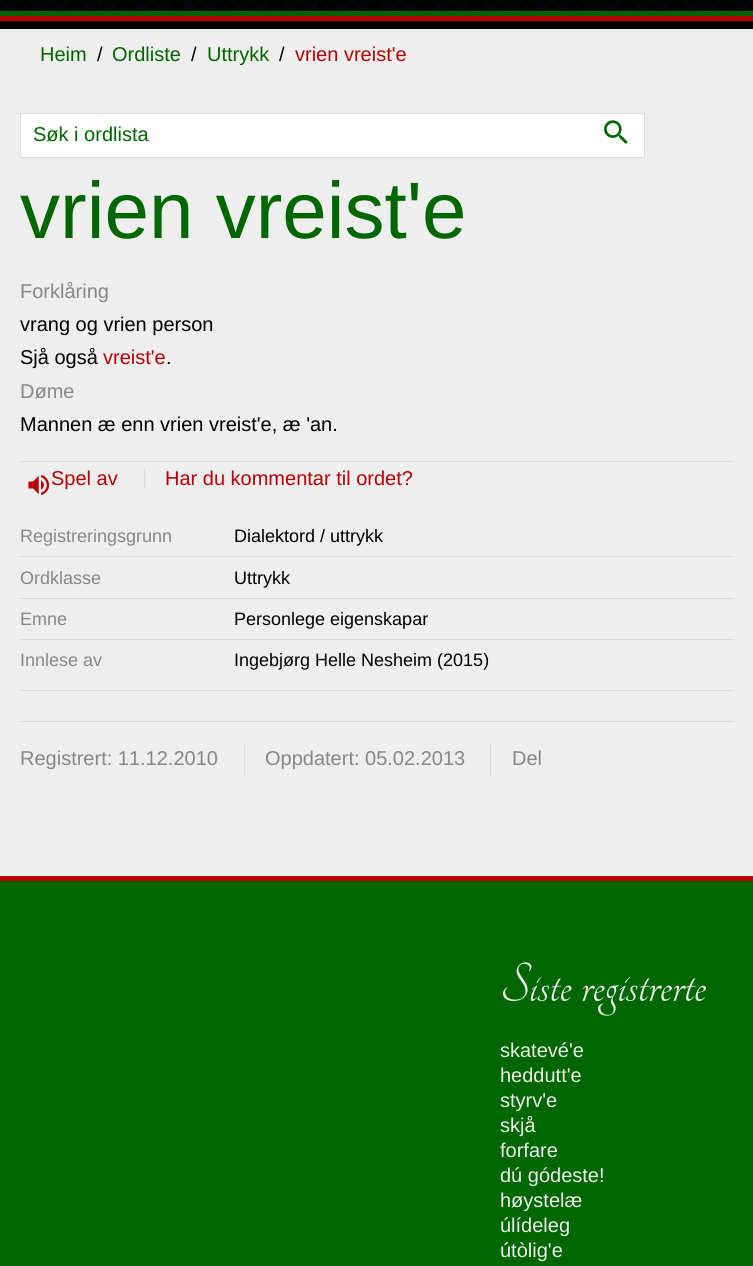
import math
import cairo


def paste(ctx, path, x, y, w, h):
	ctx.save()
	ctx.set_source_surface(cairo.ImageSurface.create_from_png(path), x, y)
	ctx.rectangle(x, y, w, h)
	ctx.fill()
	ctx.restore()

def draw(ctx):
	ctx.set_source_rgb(0.933, 0.933, 0.933)
	ctx.paint()
	paste(ctx, 'media/1.png', 0, 0, 753, 11)
	ctx.set_source_rgb(0.725, 0, 0)
	ctx.rectangle(0, 16, 753, 5)
	ctx.fill()
	ctx.set_source_rgb(0, 0.4, 0)
	ctx.rectangle(0, 11, 753, 5)
	ctx.fill()
	ctx.set_source_rgb(0, 0, 0)
	ctx.rectangle(0, 21, 753, 8)
	ctx.fill()
	ctx.select_font_face('Liberation Sans')
	ctx.set_font_size(20)
	ctx.set_source_rgb(0, 0.4, 0)
	ctx.move_to(40, 61)
	ctx.show_text('Heim')
	ctx.set_source_rgb(0, 0, 0)
	ctx.move_to(97, 61)
	ctx.show_text('/')
	ctx.set_source_rgb(0, 0.4, 0)
	ctx.move_to(112, 61)
	ctx.show_text('Ordliste')
	ctx.set_source_rgb(0, 0, 0)
	ctx.move_to(191, 61)
	ctx.show_text('/')
	ctx.set_source_rgb(0, 0.4, 0)
	ctx.move_to(207, 61)
	ctx.show_text('Uttrykk')
	ctx.set_source_rgb(0, 0, 0)
	ctx.move_to(279, 61)
	ctx.show_text('/')
	ctx.set_source_rgb(0.725, 0, 0)
	ctx.move_to(295, 61)
	ctx.show_text('vrien vreist\'e')
	ctx.set_source_rgb(1, 1, 1)
	ctx.rectangle(20.5, 113.5, 624, 44)
	ctx.fill_preserve()
	ctx.set_source_rgb(0.859, 0.859, 0.859)
	ctx.set_line_width(1)
	ctx.stroke()
	ctx.set_source_rgb(0, 0.4, 0)
	ctx.move_to(33, 141)
	ctx.show_text('Søk i ordlista')
	paste(ctx, 'media/2.png', 604, 120, 24, 24)
	ctx.set_font_size(80)
	ctx.move_to(20, 238)
	ctx.show_text('vrien vreist\'e')
	ctx.set_font_size(20)
	ctx.set_source_rgb(0.529, 0.529, 0.529)
	ctx.move_to(20, 298)
	ctx.show_text('Forklåring')
	ctx.set_source_rgb(0, 0, 0)
	ctx.move_to(20, 331)
	ctx.show_text('vrang og vrien person')
	ctx.move_to(20, 364)
	ctx.show_text('Sjå også')
	ctx.set_source_rgb(0.725, 0, 0)
	ctx.move_to(103, 364)
	ctx.show_text('vreist\'e')
	ctx.set_source_rgb(0, 0, 0)
	ctx.move_to(166, 364)
	ctx.show_text('.')
	ctx.set_source_rgb(0.529, 0.529, 0.529)
	ctx.move_to(20, 398)
	ctx.show_text('Døme')
	ctx.set_source_rgb(0, 0, 0)
	ctx.move_to(20, 431)
	ctx.show_text('Mannen æ enn vrien vreist\'e, æ \'an.')
	ctx.set_source_rgb(0.859, 0.859, 0.859)
	ctx.rectangle(20, 461, 714, 1)
	ctx.fill()
	paste(ctx, 'media/3.png', 28, 475, 22, 20)
	ctx.set_source_rgb(0.725, 0, 0)
	ctx.move_to(51, 485)
	ctx.show_text('Spel av')
	ctx.move_to(165, 485)
	ctx.show_text('Har du kommentar til ordet?')
	ctx.set_source_rgb(0.859, 0.859, 0.859)
	ctx.rectangle(144, 468, 1, 21)
	ctx.fill()
	ctx.set_font_size(18)
	ctx.set_source_rgb(0.529, 0.529, 0.529)
	ctx.move_to(20, 542)
	ctx.show_text('Registreringsgrunn')
	ctx.set_source_rgb(0.859, 0.859, 0.859)
	ctx.rectangle(20, 556, 714, 1)
	ctx.fill()
	ctx.set_source_rgb(0, 0, 0)
	ctx.move_to(234, 542)
	ctx.show_text('Dialektord / uttrykk')
	ctx.set_source_rgb(0.529, 0.529, 0.529)
	ctx.move_to(20, 584)
	ctx.show_text('Ordklasse')
	ctx.set_source_rgb(0.859, 0.859, 0.859)
	ctx.rectangle(20, 598, 714, 1)
	ctx.fill()
	ctx.set_source_rgb(0, 0, 0)
	ctx.move_to(234, 584)
	ctx.show_text('Uttrykk')
	ctx.set_source_rgb(0.529, 0.529, 0.529)
	ctx.move_to(20, 625)
	ctx.show_text('Emne')
	ctx.set_source_rgb(0.859, 0.859, 0.859)
	ctx.rectangle(20, 639, 714, 1)
	ctx.fill()
	ctx.set_source_rgb(0, 0, 0)
	ctx.move_to(234, 625)
	ctx.show_text('Personlege eigenskapar')
	ctx.set_source_rgb(0.529, 0.529, 0.529)
	ctx.move_to(20, 666)
	ctx.show_text('Innlese av')
	ctx.set_source_rgb(0, 0, 0)
	ctx.move_to(234, 666)
	ctx.show_text('Ingebjørg Helle Nesheim (2015)')
	ctx.set_source_rgb(0.859, 0.859, 0.859)
	ctx.rectangle(20, 690, 714, 1)
	ctx.fill()
	ctx.rectangle(20, 721, 714, 1)
	ctx.fill()
	ctx.set_font_size(20)
	ctx.set_source_rgb(0.529, 0.529, 0.529)
	ctx.move_to(20, 765)
	ctx.show_text('Registrert: 11.12.2010')
	ctx.set_source_rgb(0.859, 0.859, 0.859)
	ctx.rectangle(244, 743, 1, 33)
	ctx.fill()
	ctx.set_source_rgb(0.529, 0.529, 0.529)
	ctx.move_to(265, 765)
	ctx.show_text('Oppdatert: 05.02.2013')
	ctx.set_source_rgb(0.859, 0.859, 0.859)
	ctx.rectangle(490, 743, 1, 33)
	ctx.fill()
	ctx.set_source_rgb(0.529, 0.529, 0.529)
	ctx.move_to(512, 765)
	ctx.show_text('Del')
	ctx.set_source_rgb(0.725, 0, 0)
	ctx.rectangle(0, 876, 753, 5)
	ctx.fill()
	ctx.set_source_rgb(0, 0.4, 0)
	ctx.rectangle(0, 881, 753, 385)
	ctx.fill()
	ctx.select_font_face('Tangerine')
	ctx.set_font_size(60)
	ctx.set_source_rgb(0.933, 0.933, 0.933)
	ctx.move_to(500, 1001)
	ctx.show_text('Siste registrerte')
	ctx.select_font_face('Liberation Sans')
	ctx.set_font_size(20)
	for x, y, s in [
		(500, 1057, 'skatevé\'e'),
		(500, 1082, 'heddutt\'e'),
		(500, 1107, 'styrv\'e'),
		(500, 1132, 'skjå'),
		(500, 1157, 'forfare'),
		(500, 1182, 'dú gódeste!'),
		(500, 1207, 'høystelæ'),
		(500, 1232, 'úlídeleg'),
		(500, 1257, 'útòlig\'e'),
	]:
		ctx.move_to(x, y)
		ctx.show_text(s)


surface = cairo.ImageSurface(cairo.FORMAT_RGB24, 753, 1266)
ctx = cairo.Context(surface)
options = cairo.FontOptions()
options.set_hint_metrics(cairo.HINT_METRICS_OFF)
options.set_hint_style(cairo.HINT_STYLE_NONE)
ctx.set_font_options(options)
ctx.set_miter_limit(4)
draw(ctx)
surface.write_to_png('image.png')
